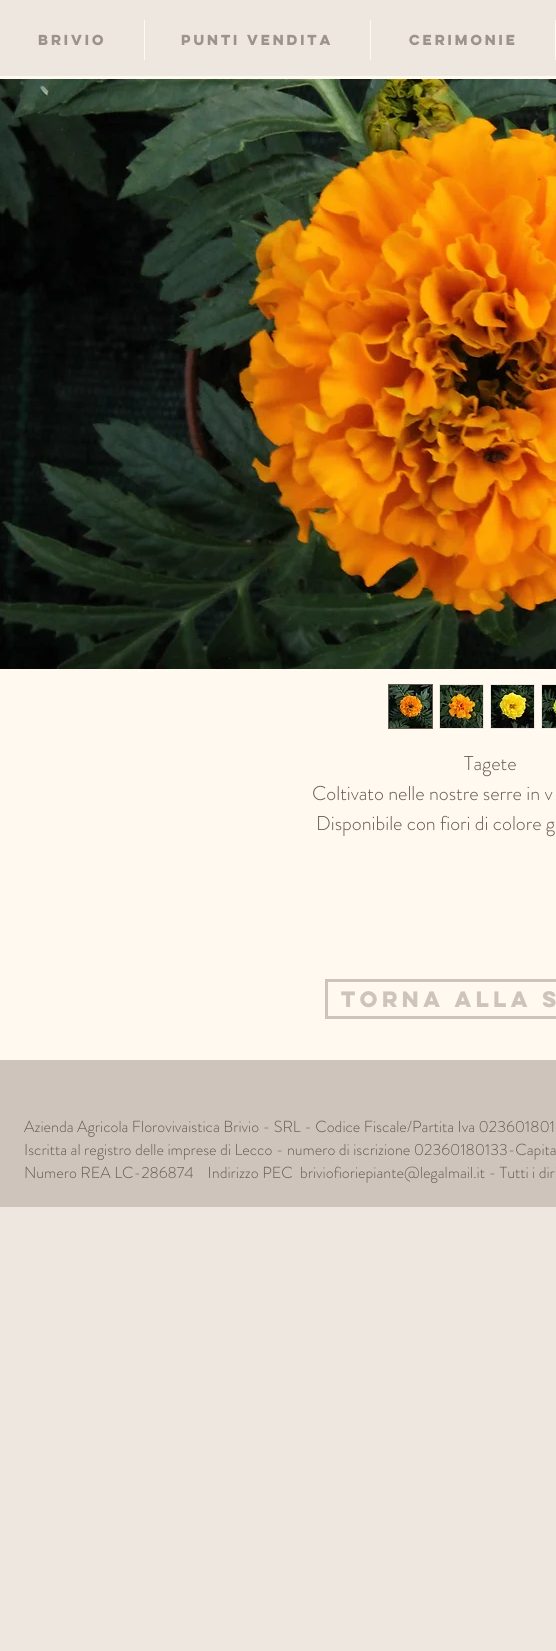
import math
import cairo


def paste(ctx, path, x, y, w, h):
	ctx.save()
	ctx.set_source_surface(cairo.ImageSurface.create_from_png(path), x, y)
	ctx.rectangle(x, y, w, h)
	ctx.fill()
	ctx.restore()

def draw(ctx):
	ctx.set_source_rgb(0.933, 0.906, 0.875)
	ctx.paint()
	ctx.select_font_face('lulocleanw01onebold', cairo.FONT_SLANT_NORMAL, cairo.FONT_WEIGHT_BOLD)
	ctx.set_font_size(13)
	ctx.set_source_rgb(0.608, 0.576, 0.549)
	ctx.move_to(38, 45)
	ctx.show_text('Brivio')
	ctx.set_source_rgb(1, 0.973, 0.941)
	ctx.rectangle(144, 20, 1, 40)
	ctx.fill()
	ctx.set_source_rgb(0.608, 0.576, 0.549)
	ctx.move_to(181, 45)
	ctx.show_text('PUNTI VENDITA')
	ctx.set_source_rgb(1, 0.973, 0.941)
	ctx.rectangle(370, 20, 1, 40)
	ctx.fill()
	ctx.set_source_rgb(0.608, 0.576, 0.549)
	ctx.move_to(409, 45)
	ctx.show_text('CERIMONIE')
	ctx.set_source_rgb(1, 0.973, 0.941)
	ctx.rectangle(555, 20, 1, 40)
	ctx.fill()
	ctx.rectangle(0, 76, 556, 984)
	ctx.fill()
	paste(ctx, 'media/1.png', 0, 79, 556, 590)
	ctx.rectangle(388.5, 684.5, 44, 44)
	ctx.set_source_rgb(0.388, 0.353, 0.314)
	ctx.set_line_width(1)
	ctx.stroke()
	paste(ctx, 'media/2.png', 389, 685, 43, 43)
	ctx.rectangle(439.5, 684.5, 44, 44)
	ctx.set_source_rgb(0.933, 0.906, 0.875)
	ctx.stroke()
	paste(ctx, 'media/3.png', 440, 685, 43, 43)
	ctx.rectangle(490.5, 684.5, 44, 44)
	ctx.stroke()
	paste(ctx, 'media/4.png', 491, 685, 43, 43)
	ctx.rectangle(541.5, 684.5, 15, 44)
	ctx.stroke()
	paste(ctx, 'media/5.png', 542, 685, 14, 43)
	ctx.select_font_face('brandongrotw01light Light')
	ctx.set_font_size(20)
	ctx.set_source_rgb(0.388, 0.353, 0.314)
	for x, y, s in [
		(464, 770, 'Tagete'),
		(312, 800, 'Coltivato nelle nostre serre in v'),
		(316, 830, 'Disponibile con fiori di colore g'),
	]:
		ctx.move_to(x, y)
		ctx.show_text(s)
	ctx.rectangle(326.5, 980.5, 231, 37)
	ctx.set_source_rgb(0.808, 0.769, 0.733)
	ctx.set_line_width(3)
	ctx.stroke()
	ctx.select_font_face('lulocleanw01onebold', cairo.FONT_SLANT_NORMAL, cairo.FONT_WEIGHT_BOLD)
	ctx.move_to(341, 1007)
	ctx.show_text('Torna alla S')
	ctx.rectangle(0, 1060, 556, 147)
	ctx.fill()
	ctx.select_font_face('brandongrotw01light Light')
	ctx.set_font_size(16)
	ctx.set_source_rgb(0.388, 0.353, 0.314)
	for x, y, s in [
		(24, 1132, 'Azienda Agricola Florovivaistica Brivio - SRL - Codice Fiscale/Partita Iva 023601801'),
		(24, 1155, 'Iscritta al registro delle imprese di Lecco - numero di iscrizione 02360180133-Capita'),
		(24, 1178, 'Numero REA LC-286874    Indirizzo PEC'),
		(300, 1178, 'briviofioriepiante@legalmail.it - Tutti i diri'),
	]:
		ctx.move_to(x, y)
		ctx.show_text(s)


surface = cairo.ImageSurface(cairo.FORMAT_RGB24, 556, 1651)
ctx = cairo.Context(surface)
options = cairo.FontOptions()
options.set_hint_metrics(cairo.HINT_METRICS_OFF)
options.set_hint_style(cairo.HINT_STYLE_NONE)
ctx.set_font_options(options)
ctx.set_miter_limit(4)
draw(ctx)
surface.write_to_png('image.png')
